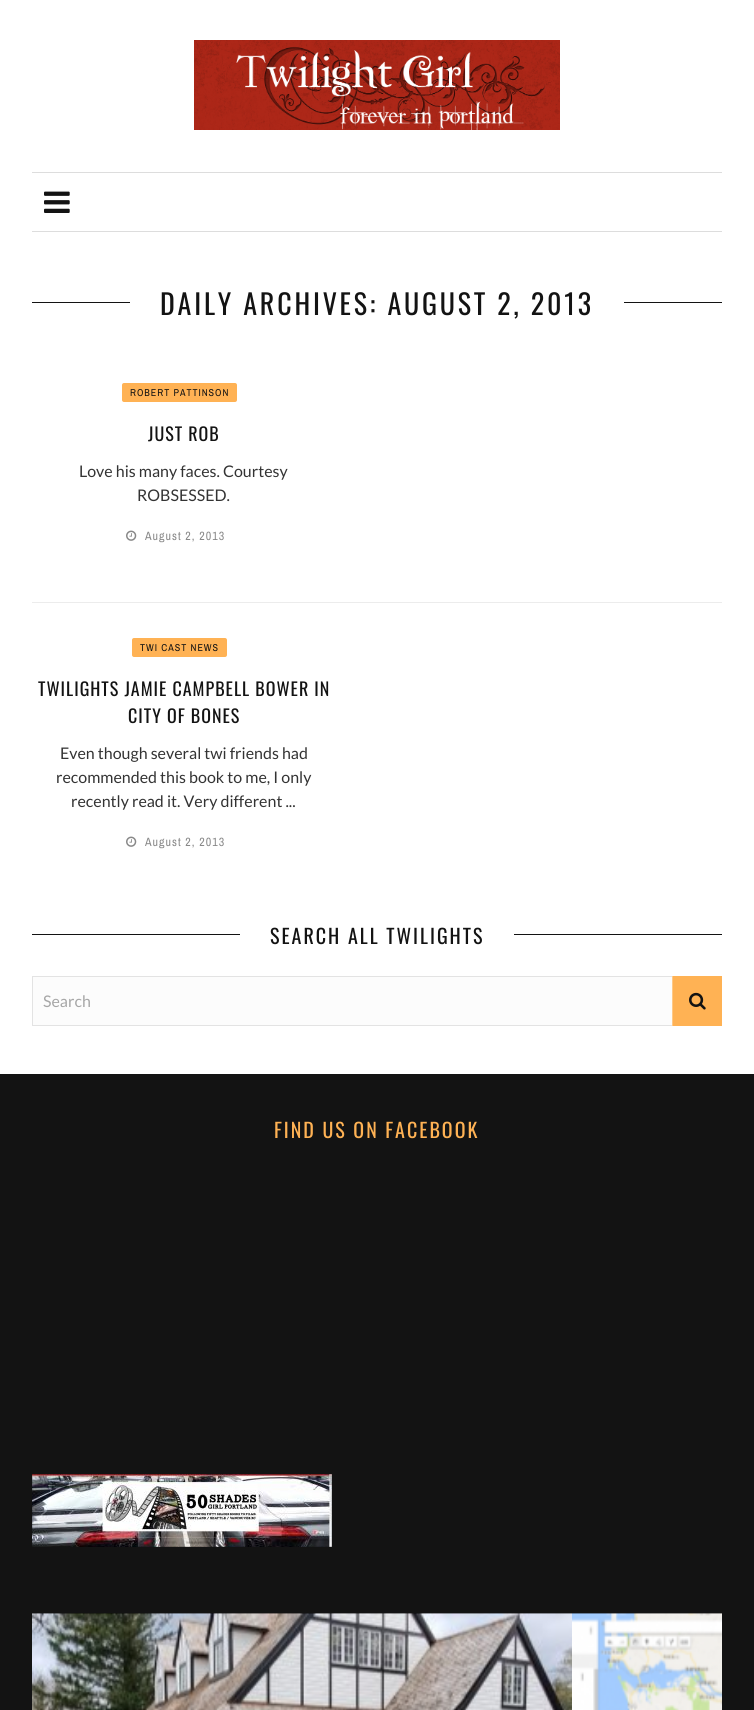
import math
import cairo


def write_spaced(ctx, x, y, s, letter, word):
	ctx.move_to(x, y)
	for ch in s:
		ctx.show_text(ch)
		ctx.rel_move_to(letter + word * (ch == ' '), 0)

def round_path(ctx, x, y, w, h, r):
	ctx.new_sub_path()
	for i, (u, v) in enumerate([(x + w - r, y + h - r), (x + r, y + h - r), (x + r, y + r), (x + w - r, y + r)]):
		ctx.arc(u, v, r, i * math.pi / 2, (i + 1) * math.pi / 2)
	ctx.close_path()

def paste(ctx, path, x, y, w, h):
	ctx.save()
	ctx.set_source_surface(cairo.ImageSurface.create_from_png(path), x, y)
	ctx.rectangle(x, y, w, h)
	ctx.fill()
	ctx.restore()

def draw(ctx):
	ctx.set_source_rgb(1, 1, 1)
	ctx.paint()
	paste(ctx, 'media/1.png', 194, 40, 366, 90)
	ctx.set_source_rgb(0.867, 0.867, 0.867)
	ctx.rectangle(32, 172, 690, 1)
	ctx.fill()
	ctx.rectangle(32, 231, 690, 1)
	ctx.fill()
	paste(ctx, 'media/2.png', 44, 191, 26, 22)
	ctx.set_source_rgb(0.075, 0.075, 0.075)
	ctx.rectangle(32, 302, 690, 1)
	ctx.fill()
	ctx.set_source_rgb(1, 1, 1)
	ctx.rectangle(130, 302, 494, 1)
	ctx.fill()
	ctx.select_font_face('Oswald')
	ctx.set_font_size(28)
	ctx.set_source_rgb(0.075, 0.075, 0.075)
	write_spaced(ctx, 160, 315, 'DAILY ARCHIVES: AUGUST 2, 2013', 2.8, 0)
	ctx.set_source_rgb(1, 0.698, 0.329)
	round_path(ctx, 122, 383, 115, 19, 2)
	ctx.fill()
	ctx.select_font_face('Archivo Narrow')
	ctx.set_font_size(10)
	ctx.set_source_rgb(0.075, 0.075, 0.075)
	write_spaced(ctx, 130, 396, 'ROBERT PATTINSON', 1, 0)
	ctx.select_font_face('Oswald')
	ctx.set_font_size(18)
	write_spaced(ctx, 148, 441, 'JUST ROB', 1, 0)
	ctx.select_font_face('Lato')
	ctx.set_font_size(16)
	ctx.set_source_rgb(0.2, 0.2, 0.2)
	ctx.move_to(79, 477)
	ctx.show_text('Love his many faces. Courtesy')
	ctx.move_to(137, 501)
	ctx.show_text('ROBSESSED.')
	paste(ctx, 'media/3.png', 126, 530, 11, 11)
	ctx.select_font_face('Archivo Narrow')
	ctx.set_font_size(12)
	ctx.set_source_rgb(0.533, 0.533, 0.533)
	write_spaced(ctx, 145, 540, 'August 2, 2013', 1, 0)
	ctx.set_source_rgb(0.925, 0.925, 0.925)
	ctx.rectangle(32, 602, 690, 1)
	ctx.fill()
	ctx.set_source_rgb(1, 0.698, 0.329)
	round_path(ctx, 132, 638, 95, 19, 2)
	ctx.fill()
	ctx.set_font_size(10)
	ctx.set_source_rgb(0.075, 0.075, 0.075)
	write_spaced(ctx, 140, 651, 'TWI CAST NEWS', 1, 0)
	ctx.select_font_face('Oswald')
	ctx.set_font_size(18)
	write_spaced(ctx, 38, 696, 'TWILIGHTS JAMIE CAMPBELL BOWER IN', 1, 0)
	write_spaced(ctx, 128, 723, 'CITY OF BONES', 1, 0)
	ctx.select_font_face('Lato')
	ctx.set_font_size(16)
	ctx.set_source_rgb(0.2, 0.2, 0.2)
	for x, y, s in [
		(60, 759, 'Even though several twi friends had'),
		(56, 783, 'recommended this book to me, I only'),
		(71, 807, 'recently read it. Very different ...'),
	]:
		ctx.move_to(x, y)
		ctx.show_text(s)
	paste(ctx, 'media/3.png', 126, 836, 11, 11)
	ctx.select_font_face('Archivo Narrow')
	ctx.set_font_size(12)
	ctx.set_source_rgb(0.533, 0.533, 0.533)
	write_spaced(ctx, 145, 846, 'August 2, 2013', 1, 0)
	ctx.set_source_rgb(0.075, 0.075, 0.075)
	ctx.rectangle(32, 934, 690, 1)
	ctx.fill()
	ctx.set_source_rgb(1, 1, 1)
	ctx.rectangle(240, 934, 274, 1)
	ctx.fill()
	ctx.select_font_face('Oswald')
	ctx.set_font_size(20)
	ctx.set_source_rgb(0.075, 0.075, 0.075)
	write_spaced(ctx, 270, 944, 'SEARCH ALL TWILIGHTS', 2, 0)
	ctx.set_source_rgb(0.988, 0.988, 0.988)
	ctx.rectangle(33, 977, 639, 48)
	ctx.fill()
	ctx.rectangle(32.5, 976.5, 689, 49)
	ctx.set_source_rgb(0.89, 0.89, 0.89)
	ctx.set_line_width(1)
	ctx.stroke()
	ctx.select_font_face('Lato')
	ctx.set_font_size(16)
	ctx.set_source_rgb(0.651, 0.651, 0.651)
	ctx.move_to(43, 1007)
	ctx.show_text('Search')
	ctx.set_source_rgb(1, 0.698, 0.329)
	ctx.rectangle(673, 976, 49, 50)
	ctx.fill()
	ctx.set_source_rgb(1, 0.788, 0.529)
	ctx.rectangle(672, 976, 1, 50)
	ctx.fill()
	paste(ctx, 'media/4.png', 689, 992, 17, 18)
	ctx.set_source_rgb(0.075, 0.075, 0.075)
	ctx.rectangle(0, 1074, 754, 636)
	ctx.fill()
	ctx.select_font_face('Oswald')
	ctx.set_font_size(20)
	ctx.set_source_rgb(1, 0.698, 0.329)
	write_spaced(ctx, 274, 1138, 'FIND US ON FACEBOOK', 2, 0)
	paste(ctx, 'media/5.png', 32, 1474, 300, 73)
	ctx.set_source_rgb(0, 0, 0)
	ctx.rectangle(32, 1613, 690, 1)
	ctx.fill()
	paste(ctx, 'media/6.png', 32, 1613, 540, 97)
	paste(ctx, 'media/7.png', 572, 1613, 150, 97)


surface = cairo.ImageSurface(cairo.FORMAT_RGB24, 754, 1710)
ctx = cairo.Context(surface)
options = cairo.FontOptions()
options.set_hint_metrics(cairo.HINT_METRICS_OFF)
options.set_hint_style(cairo.HINT_STYLE_NONE)
ctx.set_font_options(options)
ctx.set_miter_limit(4)
draw(ctx)
surface.write_to_png('image.png')
